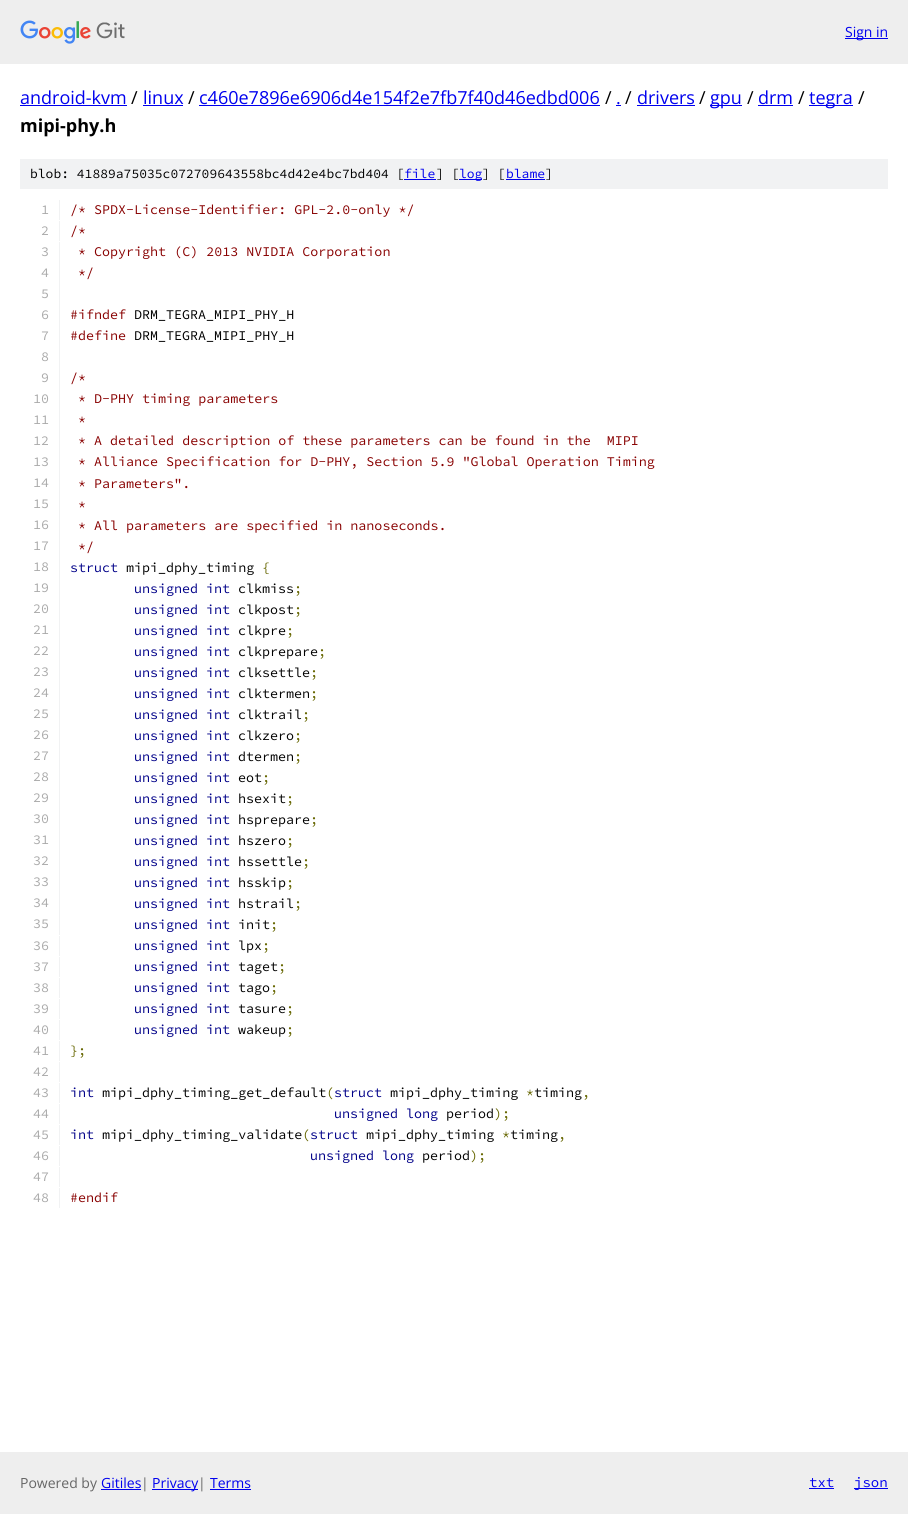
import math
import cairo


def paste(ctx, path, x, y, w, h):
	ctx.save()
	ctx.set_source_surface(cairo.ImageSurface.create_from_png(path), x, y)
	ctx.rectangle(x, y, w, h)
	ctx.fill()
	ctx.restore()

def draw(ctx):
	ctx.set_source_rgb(1, 1, 1)
	ctx.paint()
	ctx.set_source_rgb(0.933, 0.933, 0.933)
	ctx.rectangle(0, 0, 908, 64)
	ctx.fill()
	paste(ctx, 'media/1.png', 20, 20, 105, 24)
	ctx.set_source_rgb(0, 0, 0.933)
	ctx.rectangle(845, 38, 43, 1)
	ctx.fill()
	ctx.select_font_face('Open Sans')
	ctx.set_font_size(14)
	ctx.move_to(845, 37)
	ctx.show_text('Sign in')
	ctx.set_font_size(18)
	ctx.move_to(20, 104)
	ctx.show_text('android-kvm')
	ctx.rectangle(20, 105, 107, 1)
	ctx.fill()
	ctx.set_source_rgb(0, 0, 0)
	ctx.move_to(131, 104)
	ctx.show_text('/')
	ctx.set_source_rgb(0, 0, 0.933)
	ctx.move_to(143, 104)
	ctx.show_text('linux')
	ctx.rectangle(143, 105, 40, 1)
	ctx.fill()
	ctx.set_source_rgb(0, 0, 0)
	ctx.move_to(188, 104)
	ctx.show_text('/')
	ctx.set_source_rgb(0, 0, 0.933)
	ctx.move_to(199, 104)
	ctx.show_text('c460e7896e6906d4e154f2e7fb7f40d46edbd006')
	ctx.rectangle(199, 105, 401, 1)
	ctx.fill()
	ctx.set_source_rgb(0, 0, 0)
	ctx.move_to(605, 104)
	ctx.show_text('/')
	ctx.set_source_rgb(0, 0, 0.933)
	ctx.move_to(616, 104)
	ctx.show_text('.')
	ctx.rectangle(616, 105, 5, 1)
	ctx.fill()
	ctx.set_source_rgb(0, 0, 0)
	ctx.move_to(625, 104)
	ctx.show_text('/')
	ctx.set_source_rgb(0, 0, 0.933)
	ctx.move_to(637, 104)
	ctx.show_text('drivers')
	ctx.rectangle(637, 105, 58, 1)
	ctx.fill()
	ctx.set_source_rgb(0, 0, 0)
	ctx.move_to(699, 104)
	ctx.show_text('/')
	ctx.set_source_rgb(0, 0, 0.933)
	ctx.rectangle(710, 105, 32, 1)
	ctx.fill()
	ctx.move_to(710, 104)
	ctx.show_text('gpu')
	ctx.set_source_rgb(0, 0, 0)
	ctx.move_to(747, 104)
	ctx.show_text('/')
	ctx.set_source_rgb(0, 0, 0.933)
	ctx.move_to(758, 104)
	ctx.show_text('drm')
	ctx.rectangle(758, 105, 35, 1)
	ctx.fill()
	ctx.set_source_rgb(0, 0, 0)
	ctx.move_to(798, 104)
	ctx.show_text('/')
	ctx.set_source_rgb(0, 0, 0.933)
	ctx.rectangle(809, 105, 44, 1)
	ctx.fill()
	ctx.move_to(809, 104)
	ctx.show_text('tegra')
	ctx.set_source_rgb(0, 0, 0)
	ctx.move_to(858, 104)
	ctx.show_text('/')
	ctx.select_font_face('Open Sans', cairo.FONT_SLANT_NORMAL, cairo.FONT_WEIGHT_BOLD)
	ctx.move_to(20, 132)
	ctx.show_text('mipi-phy.h')
	ctx.set_source_rgb(0.945, 0.949, 0.953)
	ctx.rectangle(20, 159, 868, 30)
	ctx.fill()
	ctx.select_font_face('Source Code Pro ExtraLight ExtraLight')
	ctx.set_font_size(13)
	ctx.set_source_rgb(0, 0, 0)
	ctx.move_to(30, 178)
	ctx.show_text('blob: 41889a75035c072709643558bc4d42e4bc7bd404 [')
	ctx.set_source_rgb(0, 0, 0.933)
	ctx.move_to(404, 178)
	ctx.show_text('file')
	ctx.rectangle(404, 179, 32, 1)
	ctx.fill()
	ctx.set_source_rgb(0, 0, 0)
	ctx.move_to(436, 178)
	ctx.show_text('] [')
	ctx.set_source_rgb(0, 0, 0.933)
	ctx.rectangle(459, 179, 23, 1)
	ctx.fill()
	ctx.move_to(459, 178)
	ctx.show_text('log')
	ctx.set_source_rgb(0, 0, 0)
	ctx.move_to(482, 178)
	ctx.show_text('] [')
	ctx.set_source_rgb(0, 0, 0.933)
	ctx.move_to(506, 178)
	ctx.show_text('blame')
	ctx.rectangle(506, 179, 39, 1)
	ctx.fill()
	ctx.set_source_rgb(0, 0, 0)
	ctx.move_to(545, 178)
	ctx.show_text(']')
	ctx.set_source_rgb(0.945, 0.949, 0.953)
	ctx.rectangle(59, 200, 1, 20)
	ctx.fill()
	ctx.set_font_size(13.35)
	ctx.set_source_rgb(0.667, 0.667, 0.667)
	ctx.move_to(41, 214)
	ctx.show_text('1')
	ctx.set_source_rgb(0.533, 0, 0)
	ctx.move_to(70, 214)
	ctx.show_text('/* SPDX-License-Identifier: GPL-2.0-only */')
	ctx.set_source_rgb(0.945, 0.949, 0.953)
	ctx.rectangle(59, 221, 1, 20)
	ctx.fill()
	ctx.set_source_rgb(0.667, 0.667, 0.667)
	ctx.move_to(41, 235)
	ctx.show_text('2')
	ctx.set_source_rgb(0.533, 0, 0)
	ctx.move_to(70, 235)
	ctx.show_text('/*')
	ctx.set_source_rgb(0.945, 0.949, 0.953)
	ctx.rectangle(59, 242, 1, 693)
	ctx.fill()
	ctx.set_source_rgb(0.667, 0.667, 0.667)
	ctx.move_to(41, 256)
	ctx.show_text('3')
	ctx.set_source_rgb(0.533, 0, 0)
	ctx.move_to(78, 256)
	ctx.show_text('* Copyright (C) 2013 NVIDIA Corporation')
	ctx.set_source_rgb(0.667, 0.667, 0.667)
	ctx.move_to(41, 277)
	ctx.show_text('4')
	ctx.set_source_rgb(0.533, 0, 0)
	ctx.move_to(78, 277)
	ctx.show_text('*/')
	ctx.set_source_rgb(0.667, 0.667, 0.667)
	ctx.move_to(41, 298)
	ctx.show_text('5')
	ctx.move_to(41, 319)
	ctx.show_text('6')
	ctx.set_source_rgb(0.533, 0, 0)
	ctx.move_to(70, 319)
	ctx.show_text('#ifndef')
	ctx.set_source_rgb(0, 0, 0)
	ctx.move_to(134, 319)
	ctx.show_text('DRM_TEGRA_MIPI_PHY_H')
	ctx.set_source_rgb(0.667, 0.667, 0.667)
	ctx.move_to(41, 340)
	ctx.show_text('7')
	ctx.set_source_rgb(0.533, 0, 0)
	ctx.move_to(70, 340)
	ctx.show_text('#define')
	ctx.set_source_rgb(0, 0, 0)
	ctx.move_to(134, 340)
	ctx.show_text('DRM_TEGRA_MIPI_PHY_H')
	ctx.set_source_rgb(0.667, 0.667, 0.667)
	ctx.move_to(41, 361)
	ctx.show_text('8')
	ctx.move_to(41, 382)
	ctx.show_text('9')
	ctx.set_source_rgb(0.533, 0, 0)
	ctx.move_to(70, 382)
	ctx.show_text('/*')
	ctx.set_source_rgb(0.667, 0.667, 0.667)
	ctx.move_to(33, 403)
	ctx.show_text('10')
	ctx.set_source_rgb(0.533, 0, 0)
	ctx.move_to(78, 403)
	ctx.show_text('* D-PHY timing parameters')
	ctx.set_source_rgb(0.667, 0.667, 0.667)
	ctx.move_to(33, 424)
	ctx.show_text('11')
	ctx.set_source_rgb(0.533, 0, 0)
	ctx.move_to(78, 424)
	ctx.show_text('*')
	ctx.set_source_rgb(0.667, 0.667, 0.667)
	ctx.move_to(33, 445)
	ctx.show_text('12')
	ctx.set_source_rgb(0.533, 0, 0)
	ctx.move_to(78, 445)
	ctx.show_text('* A detailed description of these parameters can be found in the  MIPI')
	ctx.set_source_rgb(0.667, 0.667, 0.667)
	ctx.move_to(33, 466)
	ctx.show_text('13')
	ctx.set_source_rgb(0.533, 0, 0)
	ctx.move_to(78, 466)
	ctx.show_text('* Alliance Specification for D-PHY, Section 5.9 "Global Operation Timing')
	ctx.set_source_rgb(0.667, 0.667, 0.667)
	ctx.move_to(33, 487)
	ctx.show_text('14')
	ctx.set_source_rgb(0.533, 0, 0)
	ctx.move_to(78, 488)
	ctx.show_text('* Parameters".')
	ctx.set_source_rgb(0.667, 0.667, 0.667)
	ctx.move_to(33, 508)
	ctx.show_text('15')
	ctx.set_source_rgb(0.533, 0, 0)
	ctx.move_to(78, 509)
	ctx.show_text('*')
	ctx.set_source_rgb(0.667, 0.667, 0.667)
	ctx.move_to(33, 529)
	ctx.show_text('16')
	ctx.set_source_rgb(0.533, 0, 0)
	ctx.move_to(78, 530)
	ctx.show_text('* All parameters are specified in nanoseconds.')
	ctx.set_source_rgb(0.667, 0.667, 0.667)
	ctx.move_to(33, 550)
	ctx.show_text('17')
	ctx.set_source_rgb(0.533, 0, 0)
	ctx.move_to(78, 551)
	ctx.show_text('*/')
	ctx.set_source_rgb(0.667, 0.667, 0.667)
	ctx.move_to(33, 571)
	ctx.show_text('18')
	ctx.set_source_rgb(0, 0, 0.533)
	ctx.move_to(70, 572)
	ctx.show_text('struct')
	ctx.set_source_rgb(0, 0, 0)
	ctx.move_to(126, 572)
	ctx.show_text('mipi_dphy_timing')
	ctx.set_source_rgb(0.4, 0.4, 0)
	ctx.move_to(262, 572)
	ctx.show_text('{')
	ctx.set_source_rgb(0.667, 0.667, 0.667)
	ctx.move_to(33, 592)
	ctx.show_text('19')
	ctx.set_source_rgb(0, 0, 0.533)
	ctx.move_to(134, 593)
	ctx.show_text('unsigned int')
	ctx.set_source_rgb(0, 0, 0)
	ctx.move_to(238, 593)
	ctx.show_text('clkmiss')
	ctx.set_source_rgb(0.4, 0.4, 0)
	ctx.move_to(294, 593)
	ctx.show_text(';')
	ctx.set_source_rgb(0.667, 0.667, 0.667)
	ctx.move_to(33, 613)
	ctx.show_text('20')
	ctx.set_source_rgb(0, 0, 0.533)
	ctx.move_to(134, 614)
	ctx.show_text('unsigned int')
	ctx.set_source_rgb(0, 0, 0)
	ctx.move_to(238, 614)
	ctx.show_text('clkpost')
	ctx.set_source_rgb(0.4, 0.4, 0)
	ctx.move_to(294, 614)
	ctx.show_text(';')
	ctx.set_source_rgb(0.667, 0.667, 0.667)
	ctx.move_to(33, 634)
	ctx.show_text('21')
	ctx.set_source_rgb(0, 0, 0.533)
	ctx.move_to(134, 635)
	ctx.show_text('unsigned int')
	ctx.set_source_rgb(0, 0, 0)
	ctx.move_to(238, 635)
	ctx.show_text('clkpre')
	ctx.set_source_rgb(0.4, 0.4, 0)
	ctx.move_to(286, 635)
	ctx.show_text(';')
	ctx.set_source_rgb(0.667, 0.667, 0.667)
	ctx.move_to(33, 655)
	ctx.show_text('22')
	ctx.set_source_rgb(0, 0, 0.533)
	ctx.move_to(134, 656)
	ctx.show_text('unsigned int')
	ctx.set_source_rgb(0, 0, 0)
	ctx.move_to(238, 656)
	ctx.show_text('clkprepare')
	ctx.set_source_rgb(0.4, 0.4, 0)
	ctx.move_to(318, 656)
	ctx.show_text(';')
	ctx.set_source_rgb(0.667, 0.667, 0.667)
	ctx.move_to(33, 676)
	ctx.show_text('23')
	ctx.set_source_rgb(0, 0, 0.533)
	ctx.move_to(134, 677)
	ctx.show_text('unsigned int')
	ctx.set_source_rgb(0, 0, 0)
	ctx.move_to(238, 677)
	ctx.show_text('clksettle')
	ctx.set_source_rgb(0.4, 0.4, 0)
	ctx.move_to(310, 677)
	ctx.show_text(';')
	ctx.set_source_rgb(0.667, 0.667, 0.667)
	ctx.move_to(33, 697)
	ctx.show_text('24')
	ctx.set_source_rgb(0, 0, 0.533)
	ctx.move_to(134, 698)
	ctx.show_text('unsigned int')
	ctx.set_source_rgb(0, 0, 0)
	ctx.move_to(238, 698)
	ctx.show_text('clktermen')
	ctx.set_source_rgb(0.4, 0.4, 0)
	ctx.move_to(310, 698)
	ctx.show_text(';')
	ctx.set_source_rgb(0.667, 0.667, 0.667)
	ctx.move_to(33, 718)
	ctx.show_text('25')
	ctx.set_source_rgb(0, 0, 0.533)
	ctx.move_to(134, 719)
	ctx.show_text('unsigned int')
	ctx.set_source_rgb(0, 0, 0)
	ctx.move_to(238, 719)
	ctx.show_text('clktrail')
	ctx.set_source_rgb(0.4, 0.4, 0)
	ctx.move_to(302, 719)
	ctx.show_text(';')
	ctx.set_source_rgb(0.667, 0.667, 0.667)
	ctx.move_to(33, 739)
	ctx.show_text('26')
	ctx.set_source_rgb(0, 0, 0.533)
	ctx.move_to(134, 740)
	ctx.show_text('unsigned int')
	ctx.set_source_rgb(0, 0, 0)
	ctx.move_to(238, 740)
	ctx.show_text('clkzero')
	ctx.set_source_rgb(0.4, 0.4, 0)
	ctx.move_to(294, 740)
	ctx.show_text(';')
	ctx.set_source_rgb(0.667, 0.667, 0.667)
	ctx.move_to(33, 760)
	ctx.show_text('27')
	ctx.set_source_rgb(0, 0, 0.533)
	ctx.move_to(134, 761)
	ctx.show_text('unsigned int')
	ctx.set_source_rgb(0, 0, 0)
	ctx.move_to(238, 761)
	ctx.show_text('dtermen')
	ctx.set_source_rgb(0.4, 0.4, 0)
	ctx.move_to(294, 761)
	ctx.show_text(';')
	ctx.set_source_rgb(0.667, 0.667, 0.667)
	ctx.move_to(33, 781)
	ctx.show_text('28')
	ctx.set_source_rgb(0, 0, 0.533)
	ctx.move_to(134, 782)
	ctx.show_text('unsigned int')
	ctx.set_source_rgb(0, 0, 0)
	ctx.move_to(238, 782)
	ctx.show_text('eot')
	ctx.set_source_rgb(0.4, 0.4, 0)
	ctx.move_to(262, 782)
	ctx.show_text(';')
	ctx.set_source_rgb(0.667, 0.667, 0.667)
	ctx.move_to(33, 802)
	ctx.show_text('29')
	ctx.set_source_rgb(0, 0, 0.533)
	ctx.move_to(134, 803)
	ctx.show_text('unsigned int')
	ctx.set_source_rgb(0, 0, 0)
	ctx.move_to(238, 803)
	ctx.show_text('hsexit')
	ctx.set_source_rgb(0.4, 0.4, 0)
	ctx.move_to(286, 803)
	ctx.show_text(';')
	ctx.set_source_rgb(0.667, 0.667, 0.667)
	ctx.move_to(33, 823)
	ctx.show_text('30')
	ctx.set_source_rgb(0, 0, 0.533)
	ctx.move_to(134, 824)
	ctx.show_text('unsigned int')
	ctx.set_source_rgb(0, 0, 0)
	ctx.move_to(238, 824)
	ctx.show_text('hsprepare')
	ctx.set_source_rgb(0.4, 0.4, 0)
	ctx.move_to(310, 824)
	ctx.show_text(';')
	ctx.set_source_rgb(0.667, 0.667, 0.667)
	ctx.move_to(33, 844)
	ctx.show_text('31')
	ctx.set_source_rgb(0, 0, 0.533)
	ctx.move_to(134, 845)
	ctx.show_text('unsigned int')
	ctx.set_source_rgb(0, 0, 0)
	ctx.move_to(238, 845)
	ctx.show_text('hszero')
	ctx.set_source_rgb(0.4, 0.4, 0)
	ctx.move_to(286, 845)
	ctx.show_text(';')
	ctx.set_source_rgb(0.667, 0.667, 0.667)
	ctx.move_to(33, 865)
	ctx.show_text('32')
	ctx.set_source_rgb(0, 0, 0.533)
	ctx.move_to(134, 866)
	ctx.show_text('unsigned int')
	ctx.set_source_rgb(0, 0, 0)
	ctx.move_to(238, 866)
	ctx.show_text('hssettle')
	ctx.set_source_rgb(0.4, 0.4, 0)
	ctx.move_to(302, 866)
	ctx.show_text(';')
	ctx.set_source_rgb(0.667, 0.667, 0.667)
	ctx.move_to(33, 886)
	ctx.show_text('33')
	ctx.set_source_rgb(0, 0, 0.533)
	ctx.move_to(134, 887)
	ctx.show_text('unsigned int')
	ctx.set_source_rgb(0, 0, 0)
	ctx.move_to(238, 887)
	ctx.show_text('hsskip')
	ctx.set_source_rgb(0.4, 0.4, 0)
	ctx.move_to(286, 887)
	ctx.show_text(';')
	ctx.set_source_rgb(0.667, 0.667, 0.667)
	ctx.move_to(33, 907)
	ctx.show_text('34')
	ctx.set_source_rgb(0, 0, 0.533)
	ctx.move_to(134, 908)
	ctx.show_text('unsigned int')
	ctx.set_source_rgb(0, 0, 0)
	ctx.move_to(238, 908)
	ctx.show_text('hstrail')
	ctx.set_source_rgb(0.4, 0.4, 0)
	ctx.move_to(294, 908)
	ctx.show_text(';')
	ctx.set_source_rgb(0.667, 0.667, 0.667)
	ctx.move_to(33, 928)
	ctx.show_text('35')
	ctx.set_source_rgb(0, 0, 0.533)
	ctx.move_to(134, 929)
	ctx.show_text('unsigned int')
	ctx.set_source_rgb(0, 0, 0)
	ctx.move_to(238, 929)
	ctx.show_text('init')
	ctx.set_source_rgb(0.4, 0.4, 0)
	ctx.move_to(270, 929)
	ctx.show_text(';')
	ctx.set_source_rgb(0.945, 0.949, 0.953)
	ctx.rectangle(59, 936, 1, 20)
	ctx.fill()
	ctx.set_source_rgb(0.667, 0.667, 0.667)
	ctx.move_to(33, 950)
	ctx.show_text('36')
	ctx.set_source_rgb(0, 0, 0.533)
	ctx.move_to(134, 950)
	ctx.show_text('unsigned int')
	ctx.set_source_rgb(0, 0, 0)
	ctx.move_to(238, 950)
	ctx.show_text('lpx')
	ctx.set_source_rgb(0.4, 0.4, 0)
	ctx.move_to(262, 950)
	ctx.show_text(';')
	ctx.set_source_rgb(0.945, 0.949, 0.953)
	ctx.rectangle(59, 957, 1, 20)
	ctx.fill()
	ctx.set_source_rgb(0.667, 0.667, 0.667)
	ctx.move_to(33, 971)
	ctx.show_text('37')
	ctx.set_source_rgb(0, 0, 0.533)
	ctx.move_to(134, 971)
	ctx.show_text('unsigned int')
	ctx.set_source_rgb(0, 0, 0)
	ctx.move_to(238, 971)
	ctx.show_text('taget')
	ctx.set_source_rgb(0.4, 0.4, 0)
	ctx.move_to(278, 971)
	ctx.show_text(';')
	ctx.set_source_rgb(0.945, 0.949, 0.953)
	ctx.rectangle(59, 978, 1, 20)
	ctx.fill()
	ctx.set_source_rgb(0.667, 0.667, 0.667)
	ctx.move_to(33, 992)
	ctx.show_text('38')
	ctx.set_source_rgb(0, 0, 0.533)
	ctx.move_to(134, 992)
	ctx.show_text('unsigned int')
	ctx.set_source_rgb(0, 0, 0)
	ctx.move_to(238, 992)
	ctx.show_text('tago')
	ctx.set_source_rgb(0.4, 0.4, 0)
	ctx.move_to(270, 992)
	ctx.show_text(';')
	ctx.set_source_rgb(0.945, 0.949, 0.953)
	ctx.rectangle(59, 999, 1, 20)
	ctx.fill()
	ctx.set_source_rgb(0.667, 0.667, 0.667)
	ctx.move_to(33, 1013)
	ctx.show_text('39')
	ctx.set_source_rgb(0, 0, 0.533)
	ctx.move_to(134, 1013)
	ctx.show_text('unsigned int')
	ctx.set_source_rgb(0, 0, 0)
	ctx.move_to(238, 1013)
	ctx.show_text('tasure')
	ctx.set_source_rgb(0.4, 0.4, 0)
	ctx.move_to(286, 1013)
	ctx.show_text(';')
	ctx.set_source_rgb(0.945, 0.949, 0.953)
	ctx.rectangle(59, 1020, 1, 20)
	ctx.fill()
	ctx.set_source_rgb(0.667, 0.667, 0.667)
	ctx.move_to(33, 1034)
	ctx.show_text('40')
	ctx.set_source_rgb(0, 0, 0.533)
	ctx.move_to(134, 1034)
	ctx.show_text('unsigned int')
	ctx.set_source_rgb(0, 0, 0)
	ctx.move_to(238, 1034)
	ctx.show_text('wakeup')
	ctx.set_source_rgb(0.4, 0.4, 0)
	ctx.move_to(286, 1034)
	ctx.show_text(';')
	ctx.set_source_rgb(0.945, 0.949, 0.953)
	ctx.rectangle(59, 1041, 1, 20)
	ctx.fill()
	ctx.set_source_rgb(0.667, 0.667, 0.667)
	ctx.move_to(33, 1055)
	ctx.show_text('41')
	ctx.set_source_rgb(0.4, 0.4, 0)
	ctx.move_to(70, 1055)
	ctx.show_text('};')
	ctx.set_source_rgb(0.945, 0.949, 0.953)
	ctx.rectangle(59, 1062, 1, 20)
	ctx.fill()
	ctx.set_source_rgb(0.667, 0.667, 0.667)
	ctx.move_to(33, 1076)
	ctx.show_text('42')
	ctx.set_source_rgb(0.945, 0.949, 0.953)
	ctx.rectangle(59, 1083, 1, 20)
	ctx.fill()
	ctx.set_source_rgb(0.667, 0.667, 0.667)
	ctx.move_to(33, 1097)
	ctx.show_text('43')
	ctx.set_source_rgb(0, 0, 0.533)
	ctx.move_to(70, 1097)
	ctx.show_text('int')
	ctx.set_source_rgb(0, 0, 0)
	ctx.move_to(102, 1097)
	ctx.show_text('mipi_dphy_timing_get_default')
	ctx.set_source_rgb(0.4, 0.4, 0)
	ctx.move_to(326, 1097)
	ctx.show_text('(')
	ctx.set_source_rgb(0, 0, 0.533)
	ctx.move_to(334, 1097)
	ctx.show_text('struct')
	ctx.set_source_rgb(0, 0, 0)
	ctx.move_to(390, 1097)
	ctx.show_text('mipi_dphy_timing')
	ctx.set_source_rgb(0.4, 0.4, 0)
	ctx.move_to(526, 1097)
	ctx.show_text('*')
	ctx.set_source_rgb(0, 0, 0)
	ctx.move_to(534, 1097)
	ctx.show_text('timing')
	ctx.set_source_rgb(0.4, 0.4, 0)
	ctx.move_to(582, 1097)
	ctx.show_text(',')
	ctx.set_source_rgb(0.945, 0.949, 0.953)
	ctx.rectangle(59, 1104, 1, 20)
	ctx.fill()
	ctx.set_source_rgb(0.667, 0.667, 0.667)
	ctx.move_to(33, 1118)
	ctx.show_text('44')
	ctx.set_source_rgb(0, 0, 0.533)
	ctx.move_to(334, 1118)
	ctx.show_text('unsigned long')
	ctx.set_source_rgb(0, 0, 0)
	ctx.move_to(446, 1118)
	ctx.show_text('period')
	ctx.set_source_rgb(0.4, 0.4, 0)
	ctx.move_to(494, 1118)
	ctx.show_text(');')
	ctx.set_source_rgb(0.945, 0.949, 0.953)
	ctx.rectangle(59, 1125, 1, 20)
	ctx.fill()
	ctx.set_source_rgb(0.667, 0.667, 0.667)
	ctx.move_to(33, 1139)
	ctx.show_text('45')
	ctx.set_source_rgb(0, 0, 0.533)
	ctx.move_to(70, 1139)
	ctx.show_text('int')
	ctx.set_source_rgb(0, 0, 0)
	ctx.move_to(102, 1139)
	ctx.show_text('mipi_dphy_timing_validate')
	ctx.set_source_rgb(0.4, 0.4, 0)
	ctx.move_to(302, 1139)
	ctx.show_text('(')
	ctx.set_source_rgb(0, 0, 0.533)
	ctx.move_to(310, 1139)
	ctx.show_text('struct')
	ctx.set_source_rgb(0, 0, 0)
	ctx.move_to(366, 1139)
	ctx.show_text('mipi_dphy_timing')
	ctx.set_source_rgb(0.4, 0.4, 0)
	ctx.move_to(502, 1139)
	ctx.show_text('*')
	ctx.set_source_rgb(0, 0, 0)
	ctx.move_to(510, 1139)
	ctx.show_text('timing')
	ctx.set_source_rgb(0.4, 0.4, 0)
	ctx.move_to(558, 1139)
	ctx.show_text(',')
	ctx.set_source_rgb(0.945, 0.949, 0.953)
	ctx.rectangle(59, 1146, 1, 20)
	ctx.fill()
	ctx.set_source_rgb(0.667, 0.667, 0.667)
	ctx.move_to(33, 1160)
	ctx.show_text('46')
	ctx.set_source_rgb(0, 0, 0.533)
	ctx.move_to(310, 1160)
	ctx.show_text('unsigned long')
	ctx.set_source_rgb(0, 0, 0)
	ctx.move_to(422, 1160)
	ctx.show_text('period')
	ctx.set_source_rgb(0.4, 0.4, 0)
	ctx.move_to(470, 1160)
	ctx.show_text(');')
	ctx.set_source_rgb(0.945, 0.949, 0.953)
	ctx.rectangle(59, 1167, 1, 20)
	ctx.fill()
	ctx.set_source_rgb(0.667, 0.667, 0.667)
	ctx.move_to(33, 1181)
	ctx.show_text('47')
	ctx.set_source_rgb(0.945, 0.949, 0.953)
	ctx.rectangle(59, 1188, 1, 20)
	ctx.fill()
	ctx.set_source_rgb(0.667, 0.667, 0.667)
	ctx.move_to(33, 1202)
	ctx.show_text('48')
	ctx.set_source_rgb(0.533, 0, 0)
	ctx.move_to(70, 1202)
	ctx.show_text('#endif')
	ctx.set_source_rgb(0.933, 0.933, 0.933)
	ctx.rectangle(0, 1452, 908, 62)
	ctx.fill()
	ctx.select_font_face('Open Sans')
	ctx.set_font_size(14)
	ctx.set_source_rgb(0.4, 0.4, 0.4)
	ctx.move_to(20, 1488)
	ctx.show_text('Powered by')
	ctx.set_source_rgb(0, 0, 0.933)
	ctx.move_to(101, 1488)
	ctx.show_text('Gitiles')
	ctx.rectangle(101, 1489, 40, 1)
	ctx.fill()
	ctx.set_source_rgb(0.4, 0.4, 0.4)
	ctx.move_to(141, 1488)
	ctx.show_text('|')
	ctx.set_source_rgb(0, 0, 0.933)
	ctx.rectangle(152, 1489, 46, 1)
	ctx.fill()
	ctx.move_to(152, 1488)
	ctx.show_text('Privacy')
	ctx.set_source_rgb(0.4, 0.4, 0.4)
	ctx.move_to(198, 1488)
	ctx.show_text('|')
	ctx.set_source_rgb(0, 0, 0.933)
	ctx.move_to(210, 1488)
	ctx.show_text('Terms')
	ctx.rectangle(210, 1489, 41, 1)
	ctx.fill()
	ctx.select_font_face('Source Code Pro ExtraLight ExtraLight')
	ctx.move_to(809, 1487)
	ctx.show_text('txt')
	ctx.rectangle(809, 1488, 25, 1)
	ctx.fill()
	ctx.rectangle(854, 1488, 34, 1)
	ctx.fill()
	ctx.move_to(854, 1487)
	ctx.show_text('json')


surface = cairo.ImageSurface(cairo.FORMAT_RGB24, 908, 1514)
ctx = cairo.Context(surface)
options = cairo.FontOptions()
options.set_hint_metrics(cairo.HINT_METRICS_OFF)
options.set_hint_style(cairo.HINT_STYLE_NONE)
ctx.set_font_options(options)
ctx.set_miter_limit(4)
draw(ctx)
surface.write_to_png('image.png')
